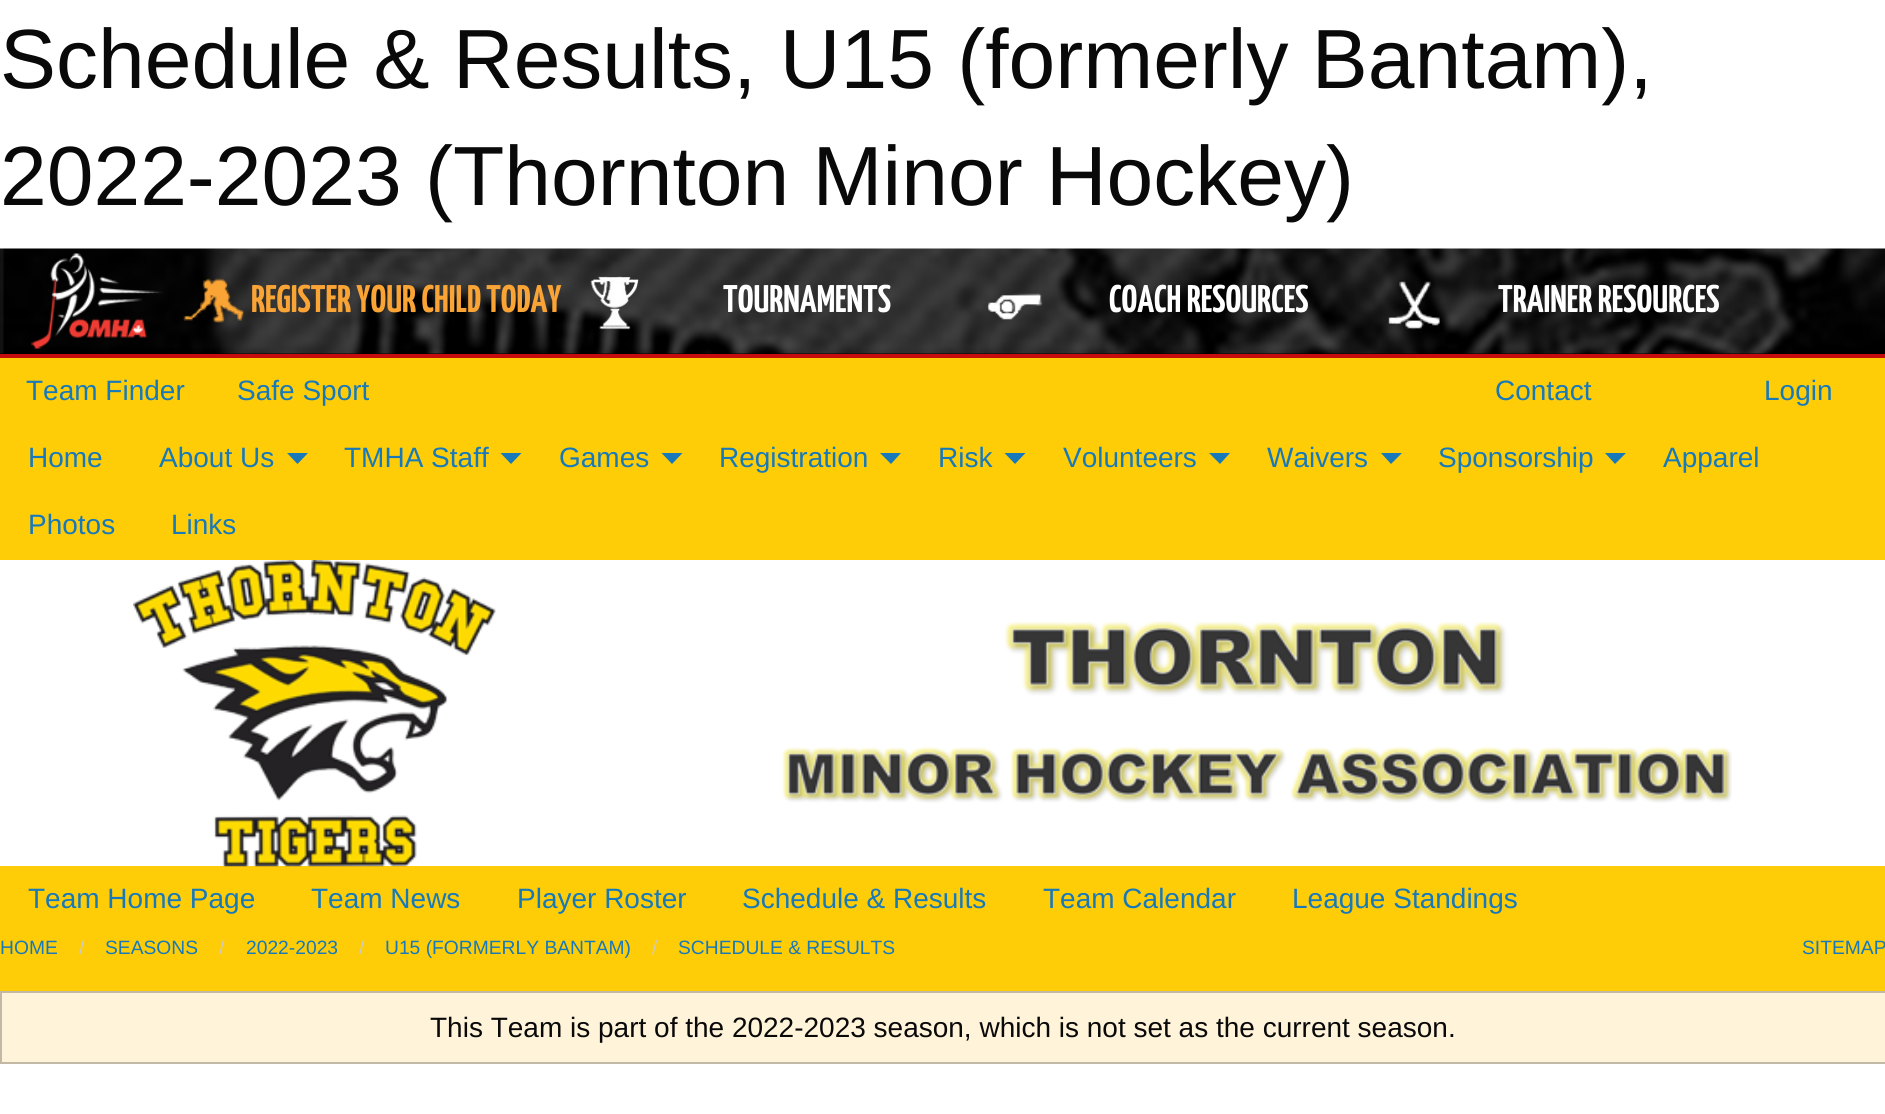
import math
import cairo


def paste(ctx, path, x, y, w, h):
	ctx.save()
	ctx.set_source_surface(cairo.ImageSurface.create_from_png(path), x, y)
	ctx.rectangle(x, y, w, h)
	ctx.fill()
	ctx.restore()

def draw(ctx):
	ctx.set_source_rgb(1, 1, 1)
	ctx.paint()
	ctx.select_font_face('Liberation Sans')
	ctx.set_font_size(84)
	ctx.set_source_rgb(0.039, 0.039, 0.039)
	ctx.move_to(0, 88)
	ctx.show_text('Schedule & Results, U15 (formerly Bantam),')
	ctx.move_to(0, 205)
	ctx.show_text('2022-2023 (Thornton Minor Hockey)')
	ctx.set_source_rgb(0, 0, 0)
	ctx.rectangle(0, 353, 1885, 1)
	ctx.fill()
	ctx.set_source_rgb(0.776, 0.047, 0.047)
	ctx.rectangle(0, 354, 1885, 4)
	ctx.fill()
	paste(ctx, 'media/1.png', 0, 248, 1885, 106)
	paste(ctx, 'media/2.png', 31, 253, 132, 96)
	paste(ctx, 'media/3.png', 183, 278, 61, 45)
	ctx.select_font_face('Yanone Kaffeesatz ExtraLight')
	ctx.set_font_size(38.5)
	ctx.set_source_rgb(0.976, 0.643, 0.208)
	ctx.move_to(251, 312)
	ctx.show_text('REGISTER YOUR CHILD TODAY')
	paste(ctx, 'media/4.png', 590, 276, 49, 54)
	ctx.set_source_rgb(1, 1, 1)
	ctx.move_to(723, 312)
	ctx.show_text('TOURNAMENTS')
	paste(ctx, 'media/5.png', 987, 293, 56, 27)
	ctx.move_to(1109, 312)
	ctx.show_text('COACH RESOURCES')
	paste(ctx, 'media/6.png', 1388, 281, 52, 49)
	ctx.move_to(1498, 312)
	ctx.show_text('TRAINER RESOURCES')
	ctx.set_source_rgb(0.996, 0.804, 0.035)
	ctx.rectangle(0, 358, 1885, 633)
	ctx.fill()
	ctx.select_font_face('Liberation Sans')
	ctx.set_font_size(28)
	ctx.set_source_rgb(0.09, 0.475, 0.729)
	for x, y, s in [
		(26, 400, 'Team Finder'),
		(237, 400, 'Safe Sport'),
		(1495, 400, 'Contact'),
		(1764, 400, 'Login'),
		(28, 467, 'Home'),
		(159, 467, 'About Us'),
	]:
		ctx.move_to(x, y)
		ctx.show_text(s)
	ctx.new_path()
	ctx.move_to(287, 453)
	ctx.line_to(308, 453)
	ctx.line_to(297.5, 464)
	ctx.close_path()
	ctx.fill()
	ctx.move_to(344, 467)
	ctx.show_text('TMHA Staff')
	ctx.new_path()
	ctx.move_to(500.5, 453)
	ctx.line_to(521.5, 453)
	ctx.line_to(511, 464)
	ctx.close_path()
	ctx.fill()
	ctx.move_to(559, 467)
	ctx.show_text('Games')
	ctx.new_path()
	ctx.move_to(661.5, 453)
	ctx.line_to(682.5, 453)
	ctx.line_to(672, 464)
	ctx.close_path()
	ctx.fill()
	ctx.move_to(719, 467)
	ctx.show_text('Registration')
	ctx.new_path()
	ctx.move_to(880, 453)
	ctx.line_to(901, 453)
	ctx.line_to(891, 464)
	ctx.close_path()
	ctx.fill()
	ctx.move_to(938, 467)
	ctx.show_text('Risk')
	ctx.new_path()
	ctx.move_to(1004.5, 453)
	ctx.line_to(1025.5, 453)
	ctx.line_to(1015, 464)
	ctx.close_path()
	ctx.fill()
	ctx.move_to(1063, 467)
	ctx.show_text('Volunteers')
	ctx.new_path()
	ctx.move_to(1209, 453)
	ctx.line_to(1230, 453)
	ctx.line_to(1220, 464)
	ctx.close_path()
	ctx.fill()
	ctx.move_to(1267, 467)
	ctx.show_text('Waivers')
	ctx.new_path()
	ctx.move_to(1381, 453)
	ctx.line_to(1402, 453)
	ctx.line_to(1391, 464)
	ctx.close_path()
	ctx.fill()
	ctx.move_to(1438, 467)
	ctx.show_text('Sponsorship')
	ctx.new_path()
	ctx.move_to(1605, 453)
	ctx.line_to(1626, 453)
	ctx.line_to(1615, 464)
	ctx.close_path()
	ctx.fill()
	for x, y, s in [
		(1663, 467, 'Apparel'),
		(28, 534, 'Photos'),
		(171, 534, 'Links'),
	]:
		ctx.move_to(x, y)
		ctx.show_text(s)
	ctx.set_source_rgb(1, 1, 1)
	ctx.rectangle(0, 560, 1885, 306)
	ctx.fill()
	paste(ctx, 'media/7.png', 133, 560, 363, 307)
	paste(ctx, 'media/8.png', 782, 621, 950, 182)
	ctx.set_source_rgb(0.09, 0.475, 0.729)
	for x, y, s in [
		(28, 908, 'Team Home Page'),
		(311, 908, 'Team News'),
		(517, 908, 'Player Roster'),
		(742, 908, 'Schedule & Results'),
		(1043, 908, 'Team Calendar'),
		(1292, 908, 'League Standings'),
	]:
		ctx.move_to(x, y)
		ctx.show_text(s)
	ctx.set_font_size(19.25)
	ctx.move_to(0, 954)
	ctx.show_text('HOME')
	ctx.set_source_rgb(0.792, 0.792, 0.792)
	ctx.move_to(79, 954)
	ctx.show_text('/')
	ctx.set_source_rgb(0.09, 0.475, 0.729)
	ctx.move_to(105, 954)
	ctx.show_text('SEASONS')
	ctx.set_source_rgb(0.792, 0.792, 0.792)
	ctx.move_to(219, 954)
	ctx.show_text('/')
	ctx.set_source_rgb(0.09, 0.475, 0.729)
	ctx.move_to(246, 954)
	ctx.show_text('2022-2023')
	ctx.set_source_rgb(0.792, 0.792, 0.792)
	ctx.move_to(359, 954)
	ctx.show_text('/')
	ctx.set_source_rgb(0.09, 0.475, 0.729)
	ctx.move_to(385, 954)
	ctx.show_text('U15 (FORMERLY BANTAM)')
	ctx.set_source_rgb(0.792, 0.792, 0.792)
	ctx.move_to(652, 954)
	ctx.show_text('/')
	ctx.set_source_rgb(0.09, 0.475, 0.729)
	ctx.move_to(678, 954)
	ctx.show_text('SCHEDULE & RESULTS')
	ctx.move_to(1802, 954)
	ctx.show_text('SITEMAP')
	ctx.set_source_rgb(1, 0.953, 0.851)
	ctx.rectangle(1, 992, 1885, 71)
	ctx.fill_preserve()
	ctx.set_source_rgb(0.761, 0.725, 0.647)
	ctx.stroke()
	ctx.set_font_size(28)
	ctx.set_source_rgb(0.039, 0.039, 0.039)
	ctx.move_to(430, 1037)
	ctx.show_text('This Team is part of the 2022-2023 season, which is not set as the current season.')


surface = cairo.ImageSurface(cairo.FORMAT_RGB24, 1885, 1114)
ctx = cairo.Context(surface)
options = cairo.FontOptions()
options.set_hint_metrics(cairo.HINT_METRICS_OFF)
options.set_hint_style(cairo.HINT_STYLE_NONE)
ctx.set_font_options(options)
ctx.set_miter_limit(4)
draw(ctx)
surface.write_to_png('image.png')
